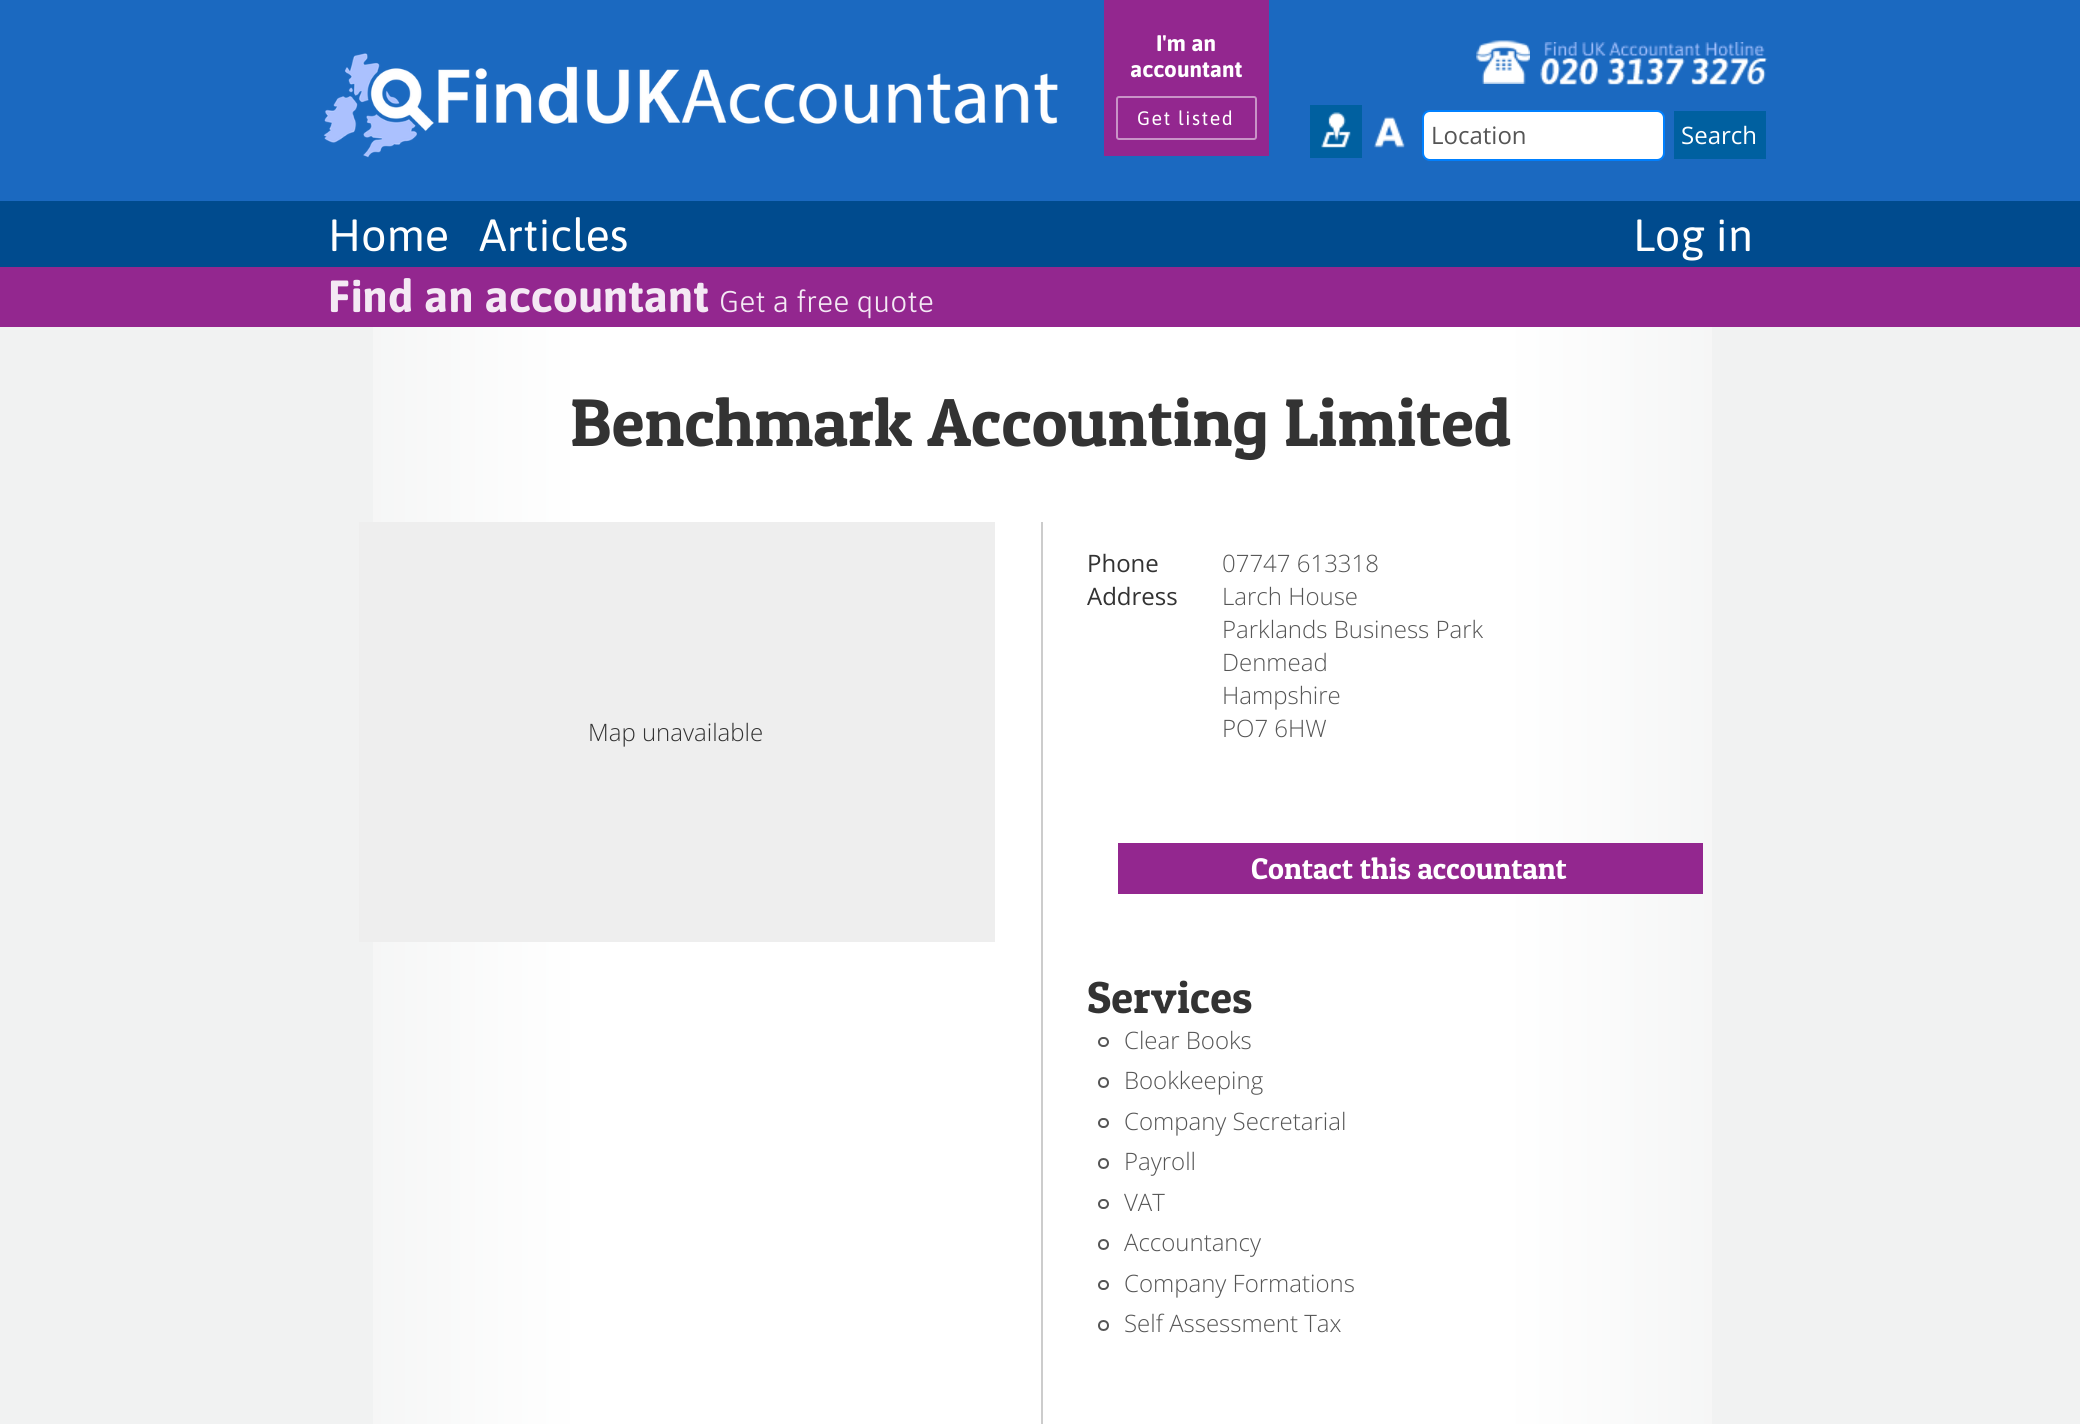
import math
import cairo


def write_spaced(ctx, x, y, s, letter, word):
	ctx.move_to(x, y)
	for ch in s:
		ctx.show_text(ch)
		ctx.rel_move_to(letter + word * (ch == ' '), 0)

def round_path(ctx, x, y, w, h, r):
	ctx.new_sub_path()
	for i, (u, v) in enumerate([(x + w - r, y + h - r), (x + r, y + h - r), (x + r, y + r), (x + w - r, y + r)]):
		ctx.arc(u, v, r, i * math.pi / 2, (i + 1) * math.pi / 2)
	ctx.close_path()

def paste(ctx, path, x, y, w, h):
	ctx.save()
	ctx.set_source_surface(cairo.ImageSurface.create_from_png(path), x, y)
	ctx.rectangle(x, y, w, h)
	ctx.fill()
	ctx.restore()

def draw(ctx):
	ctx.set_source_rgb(0.106, 0.412, 0.753)
	ctx.paint()
	paste(ctx, 'media/1.png', 323, 53, 735, 105)
	ctx.set_source_rgb(0.576, 0.153, 0.561)
	ctx.rectangle(1104, 0, 165, 156)
	ctx.fill()
	ctx.select_font_face('Asap', cairo.FONT_SLANT_NORMAL, cairo.FONT_WEIGHT_BOLD)
	ctx.set_font_size(22.5)
	ctx.set_source_rgb(1, 1, 1)
	ctx.move_to(1156, 51)
	ctx.show_text('I\'m an')
	ctx.move_to(1130, 77)
	ctx.show_text('accountant')
	round_path(ctx, 1117, 97, 139, 42, 2)
	ctx.set_source_rgb(0.788, 0.576, 0.78)
	ctx.stroke()
	ctx.select_font_face('Asap')
	ctx.set_font_size(19.5)
	ctx.set_source_rgb(1, 1, 1)
	write_spaced(ctx, 1137, 125, 'Get listed', 1.5, 0)
	paste(ctx, 'media/2.png', 1476, 40, 54, 44)
	paste(ctx, 'media/3.png', 1540, 42, 228, 43)
	ctx.set_source_rgb(0, 0.376, 0.627)
	ctx.rectangle(1310, 105, 52, 53)
	ctx.fill()
	paste(ctx, 'media/4.png', 1321, 112, 30, 36)
	paste(ctx, 'media/5.png', 1374, 116, 31, 32)
	ctx.set_source_rgb(1, 1, 1)
	round_path(ctx, 1423, 111, 241, 49, 7)
	ctx.fill_preserve()
	ctx.set_source_rgb(0, 0.502, 1)
	ctx.stroke()
	ctx.select_font_face('Open Sans')
	ctx.set_font_size(24)
	ctx.set_source_rgb(0.333, 0.333, 0.333)
	ctx.move_to(1431, 144)
	ctx.show_text('Location')
	ctx.set_source_rgb(0, 0.376, 0.627)
	ctx.rectangle(1674, 111, 92, 48)
	ctx.fill()
	ctx.set_source_rgb(1, 1, 1)
	ctx.move_to(1681, 144)
	ctx.show_text('Search')
	ctx.set_source_rgb(0, 0.294, 0.557)
	ctx.rectangle(0, 201, 2080, 66)
	ctx.fill()
	ctx.select_font_face('Asap')
	ctx.set_font_size(45)
	ctx.set_source_rgb(1, 1, 1)
	for x, y, s in [
		(328, 251, 'Home'),
		(479, 251, 'Articles'),
		(1633, 251, 'Log in'),
	]:
		ctx.move_to(x, y)
		ctx.show_text(s)
	ctx.set_source_rgb(0.576, 0.153, 0.561)
	ctx.rectangle(0, 267, 2080, 60)
	ctx.fill()
	ctx.select_font_face('Asap', cairo.FONT_SLANT_NORMAL, cairo.FONT_WEIGHT_BOLD)
	ctx.set_source_rgb(0.957, 0.914, 0.957)
	ctx.move_to(328, 312)
	ctx.show_text('Find an accountant')
	ctx.select_font_face('Asap Light')
	ctx.set_font_size(30)
	ctx.move_to(719, 312)
	ctx.show_text('Get a free quote')
	ctx.set_source_rgb(0.945, 0.949, 0.949)
	ctx.rectangle(0, 327, 2080, 1097)
	ctx.fill()
	paste(ctx, 'media/6.png', 373, 327, 1339, 1097)
	ctx.select_font_face('Patua One')
	ctx.set_font_size(67.5)
	ctx.set_source_rgb(0.2, 0.2, 0.2)
	ctx.move_to(570, 446)
	ctx.show_text('Benchmark Accounting Limited')
	ctx.set_source_rgb(0.933, 0.933, 0.933)
	ctx.rectangle(359, 522, 636, 420)
	ctx.fill()
	ctx.select_font_face('Open Sans Light')
	ctx.set_font_size(24)
	ctx.set_source_rgb(0.2, 0.2, 0.2)
	ctx.move_to(588, 741)
	ctx.show_text('Map unavailable')
	ctx.set_source_rgb(0.8, 0.8, 0.8)
	ctx.rectangle(1041, 522, 2, 902)
	ctx.fill()
	ctx.select_font_face('Open Sans')
	ctx.set_source_rgb(0.2, 0.2, 0.2)
	ctx.move_to(1087, 572)
	ctx.show_text('Phone')
	ctx.select_font_face('Open Sans Light')
	ctx.set_source_rgb(0.333, 0.333, 0.333)
	ctx.move_to(1222, 572)
	ctx.show_text('07747 613318')
	ctx.select_font_face('Open Sans')
	ctx.set_source_rgb(0.2, 0.2, 0.2)
	ctx.move_to(1087, 605)
	ctx.show_text('Address')
	ctx.select_font_face('Open Sans Light')
	ctx.set_source_rgb(0.333, 0.333, 0.333)
	for x, y, s in [
		(1222, 605, 'Larch House'),
		(1222, 638, 'Parklands Business Park'),
		(1222, 671, 'Denmead'),
		(1222, 704, 'Hampshire'),
		(1222, 737, 'PO7 6HW'),
	]:
		ctx.move_to(x, y)
		ctx.show_text(s)
	ctx.set_source_rgb(0.576, 0.153, 0.561)
	ctx.rectangle(1118, 843, 585, 51)
	ctx.fill()
	ctx.select_font_face('Patua One')
	ctx.set_font_size(30)
	ctx.set_source_rgb(1, 1, 1)
	ctx.move_to(1251, 879)
	ctx.show_text('Contact this accountant')
	ctx.set_font_size(45)
	ctx.set_source_rgb(0.2, 0.2, 0.2)
	ctx.move_to(1087, 1013)
	ctx.show_text('Services')
	round_path(ctx, 1099, 1038, 9, 8, 4)
	ctx.set_source_rgb(0.333, 0.333, 0.333)
	ctx.stroke()
	ctx.select_font_face('Open Sans Light')
	ctx.set_font_size(24)
	ctx.move_to(1124, 1049)
	ctx.show_text('Clear Books')
	ctx.new_path()
	ctx.arc(1103.5, 1082.5, 4.5, 0, 2 * math.pi)
	ctx.stroke()
	ctx.move_to(1124, 1089)
	ctx.show_text('Bookkeeping')
	round_path(ctx, 1099, 1119, 9, 8, 4)
	ctx.stroke()
	ctx.move_to(1124, 1130)
	ctx.show_text('Company Secretarial')
	ctx.new_path()
	ctx.arc(1103.5, 1163.5, 4.5, 0, 2 * math.pi)
	ctx.stroke()
	ctx.move_to(1124, 1170)
	ctx.show_text('Payroll')
	round_path(ctx, 1099, 1200, 9, 8, 4)
	ctx.stroke()
	ctx.move_to(1124, 1211)
	ctx.show_text('VAT')
	ctx.new_path()
	ctx.arc(1103.5, 1244.5, 4.5, 0, 2 * math.pi)
	ctx.stroke()
	ctx.move_to(1124, 1251)
	ctx.show_text('Accountancy')
	round_path(ctx, 1099, 1281, 9, 8, 4)
	ctx.stroke()
	ctx.move_to(1124, 1292)
	ctx.show_text('Company Formations')
	ctx.new_path()
	ctx.arc(1103.5, 1325.5, 4.5, 0, 2 * math.pi)
	ctx.stroke()
	ctx.move_to(1124, 1332)
	ctx.show_text('Self Assessment Tax')


surface = cairo.ImageSurface(cairo.FORMAT_RGB24, 2080, 1424)
ctx = cairo.Context(surface)
options = cairo.FontOptions()
options.set_hint_metrics(cairo.HINT_METRICS_OFF)
options.set_hint_style(cairo.HINT_STYLE_NONE)
ctx.set_font_options(options)
ctx.set_miter_limit(4)
draw(ctx)
surface.write_to_png('image.png')
